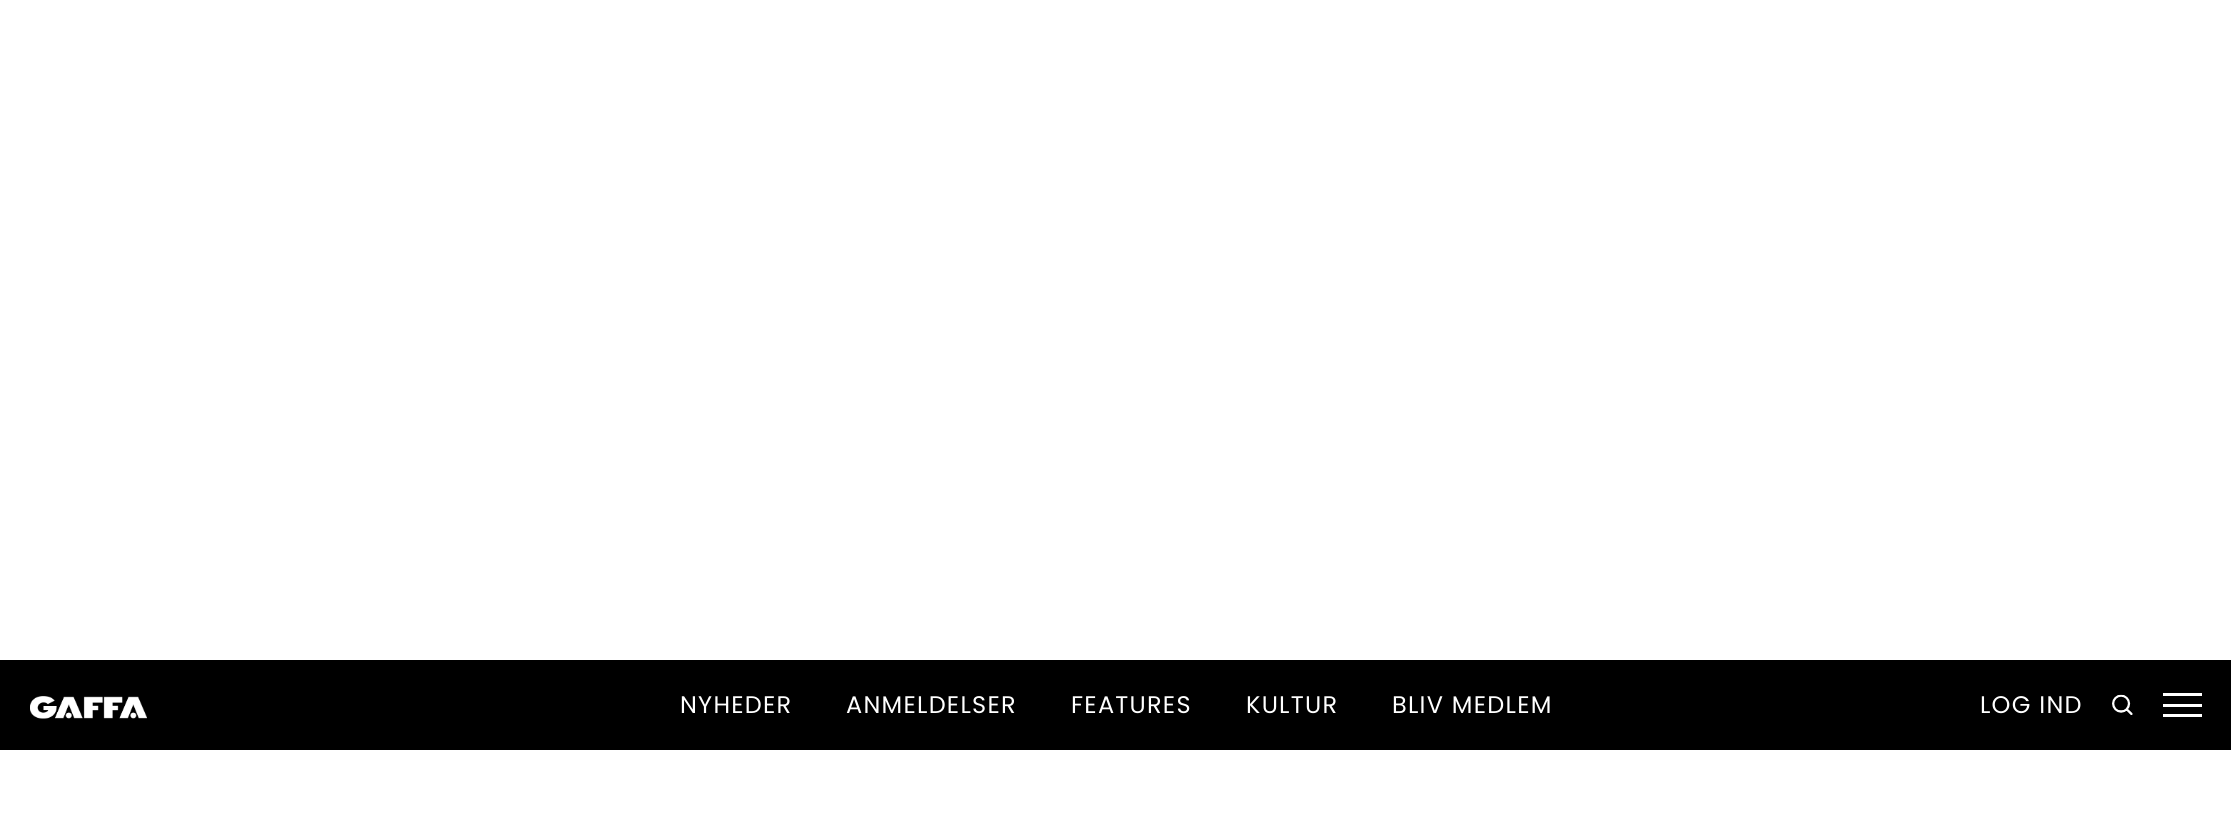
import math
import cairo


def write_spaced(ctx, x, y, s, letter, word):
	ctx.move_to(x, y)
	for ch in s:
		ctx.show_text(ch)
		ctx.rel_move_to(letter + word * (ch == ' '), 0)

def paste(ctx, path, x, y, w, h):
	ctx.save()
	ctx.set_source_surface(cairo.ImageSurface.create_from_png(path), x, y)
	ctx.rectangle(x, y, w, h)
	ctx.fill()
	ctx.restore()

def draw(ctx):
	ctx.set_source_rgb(1, 1, 1)
	ctx.paint()
	ctx.set_source_rgb(0, 0, 0)
	ctx.rectangle(0, 660, 2231, 90)
	ctx.fill()
	paste(ctx, 'media/1.png', 30, 696, 117, 23)
	ctx.select_font_face('Poppins')
	ctx.set_font_size(24)
	ctx.set_source_rgb(1, 1, 1)
	for x, y, s in [
		(680, 713, 'NYHEDER'),
		(846, 713, 'ANMELDELSER'),
		(1071, 713, 'FEATURES'),
		(1246, 713, 'KULTUR'),
		(1392, 713, 'BLIV MEDLEM'),
		(1980, 713, 'LOG IND'),
	]:
		write_spaced(ctx, x, y, s, 1.25, 0)
	paste(ctx, 'media/2.png', 2112, 694, 21, 21)
	ctx.rectangle(2163, 693, 39, 3)
	ctx.rectangle(2163, 704, 39, 3)
	ctx.rectangle(2163, 714, 39, 3)
	ctx.fill()


surface = cairo.ImageSurface(cairo.FORMAT_RGB24, 2231, 825)
ctx = cairo.Context(surface)
options = cairo.FontOptions()
options.set_hint_metrics(cairo.HINT_METRICS_OFF)
options.set_hint_style(cairo.HINT_STYLE_NONE)
ctx.set_font_options(options)
ctx.set_miter_limit(4)
draw(ctx)
surface.write_to_png('image.png')
